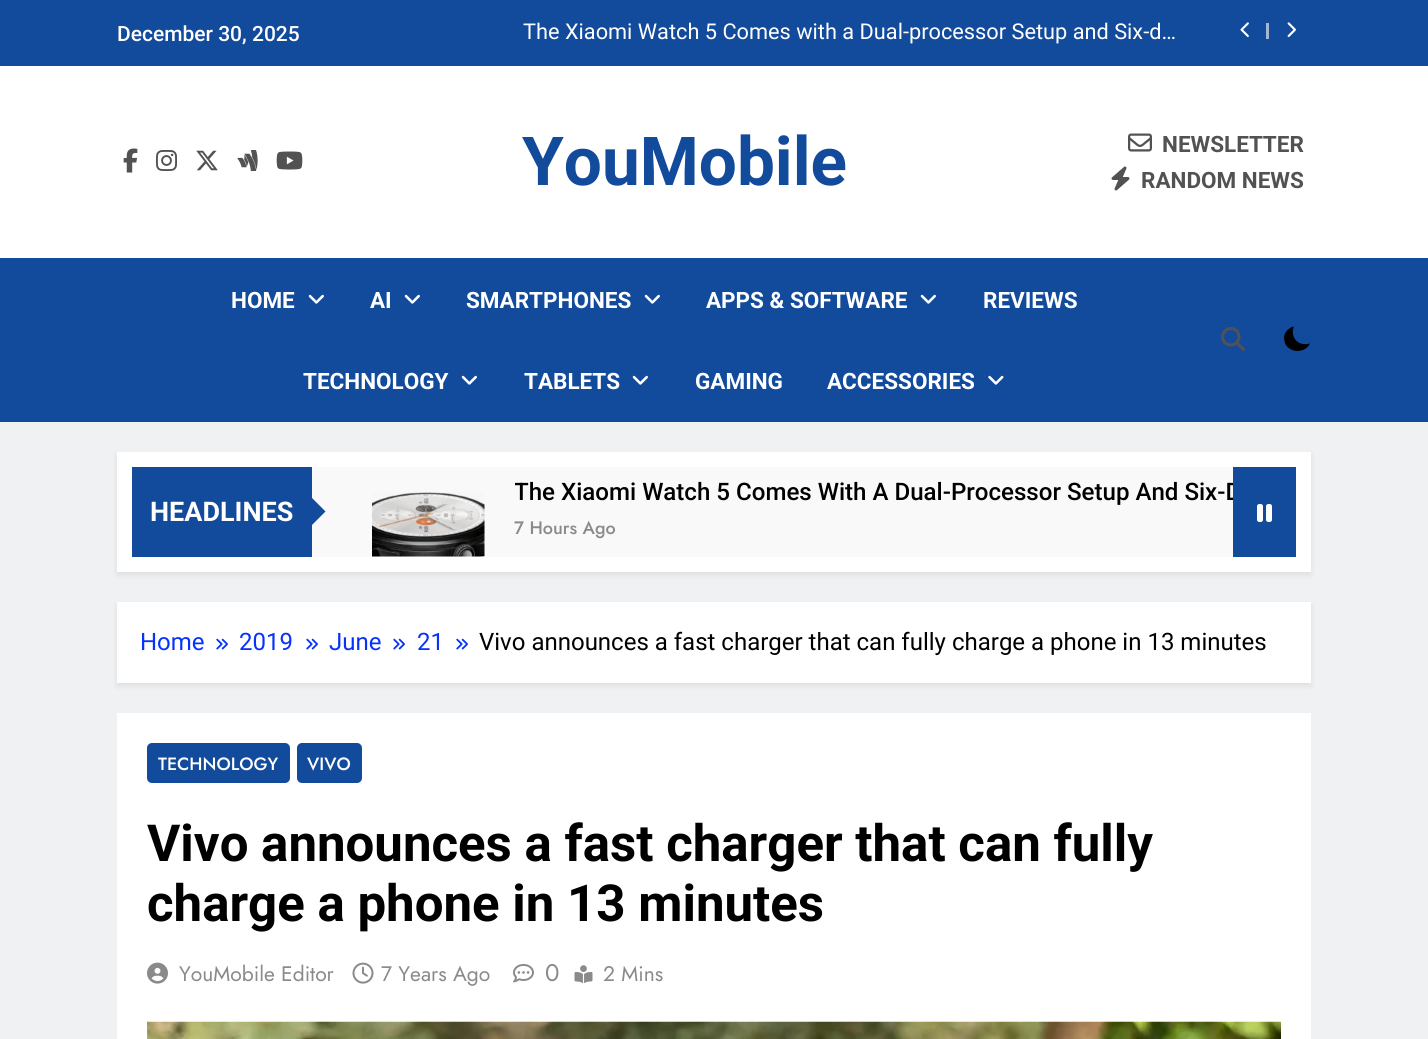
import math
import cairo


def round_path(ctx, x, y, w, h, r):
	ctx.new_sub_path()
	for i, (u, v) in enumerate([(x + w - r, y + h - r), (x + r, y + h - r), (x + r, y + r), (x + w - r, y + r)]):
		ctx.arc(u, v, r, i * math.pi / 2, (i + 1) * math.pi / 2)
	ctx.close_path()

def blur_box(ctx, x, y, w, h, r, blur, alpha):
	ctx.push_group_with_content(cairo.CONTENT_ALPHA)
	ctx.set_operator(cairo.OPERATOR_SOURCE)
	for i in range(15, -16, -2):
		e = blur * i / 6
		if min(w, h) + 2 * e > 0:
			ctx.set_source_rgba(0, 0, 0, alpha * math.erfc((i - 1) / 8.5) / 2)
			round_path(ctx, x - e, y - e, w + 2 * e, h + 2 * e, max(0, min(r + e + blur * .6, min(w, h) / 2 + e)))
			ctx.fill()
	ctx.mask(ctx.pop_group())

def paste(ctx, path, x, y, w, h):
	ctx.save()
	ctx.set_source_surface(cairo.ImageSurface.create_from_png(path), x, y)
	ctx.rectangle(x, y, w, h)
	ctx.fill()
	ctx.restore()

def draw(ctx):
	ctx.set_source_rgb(0.941, 0.945, 0.949)
	ctx.paint()
	ctx.set_source_rgb(0.071, 0.29, 0.612)
	ctx.rectangle(0, 0, 1428, 66)
	ctx.fill()
	ctx.select_font_face('Roboto Medium')
	ctx.set_font_size(21)
	ctx.set_source_rgb(1, 1, 1)
	ctx.move_to(117, 41)
	ctx.show_text('December 30, 2025')
	ctx.select_font_face('Roboto')
	ctx.set_font_size(21.75)
	ctx.move_to(523, 39)
	ctx.show_text('The Xiaomi Watch 5 Comes with a Dual-processor Setup and Six-d…')
	paste(ctx, 'media/1.png', 1240, 22, 9, 15)
	ctx.set_source_rgb(0.627, 0.718, 0.843)
	ctx.rectangle(1266, 23, 3, 16)
	ctx.fill()
	paste(ctx, 'media/2.png', 1287, 22, 9, 15)
	ctx.set_source_rgb(1, 1, 1)
	ctx.rectangle(0, 66, 1428, 192)
	ctx.fill()
	paste(ctx, 'media/3.png', 123, 148, 15, 25)
	paste(ctx, 'media/4.png', 156, 150, 21, 21)
	paste(ctx, 'media/5.png', 196, 150, 22, 21)
	paste(ctx, 'media/6.png', 237, 150, 21, 21)
	paste(ctx, 'media/7.png', 276, 151, 27, 19)
	ctx.select_font_face('Roboto', cairo.FONT_SLANT_NORMAL, cairo.FONT_WEIGHT_BOLD)
	ctx.set_font_size(67.5)
	ctx.set_source_rgb(0.071, 0.29, 0.612)
	ctx.move_to(522, 185)
	ctx.show_text('YouMobile')
	paste(ctx, 'media/8.png', 1128, 133, 24, 19)
	ctx.set_font_size(22.5)
	ctx.set_source_rgb(0.322, 0.322, 0.322)
	ctx.move_to(1162, 152)
	ctx.show_text('NEWSLETTER')
	paste(ctx, 'media/9.png', 1111, 166, 19, 25)
	ctx.move_to(1141, 188)
	ctx.show_text('RANDOM NEWS')
	ctx.set_source_rgb(0.071, 0.29, 0.612)
	ctx.rectangle(0, 258, 1428, 164)
	ctx.fill()
	ctx.set_source_rgb(1, 1, 1)
	ctx.move_to(231, 308)
	ctx.show_text('HOME')
	paste(ctx, 'media/10.png', 308, 294, 16, 10)
	ctx.move_to(370, 308)
	ctx.show_text('AI')
	paste(ctx, 'media/10.png', 404, 294, 16, 10)
	ctx.move_to(466, 308)
	ctx.show_text('SMARTPHONES')
	paste(ctx, 'media/10.png', 644, 294, 16, 10)
	ctx.move_to(706, 308)
	ctx.show_text('APPS & SOFTWARE')
	paste(ctx, 'media/10.png', 920, 294, 16, 10)
	ctx.move_to(983, 308)
	ctx.show_text('REVIEWS')
	ctx.move_to(303, 389)
	ctx.show_text('TECHNOLOGY')
	paste(ctx, 'media/10.png', 461, 375, 16, 10)
	ctx.move_to(524, 389)
	ctx.show_text('TABLETS')
	paste(ctx, 'media/10.png', 632, 375, 16, 10)
	ctx.move_to(695, 389)
	ctx.show_text('GAMING')
	ctx.move_to(827, 389)
	ctx.show_text('ACCESSORIES')
	paste(ctx, 'media/11.png', 988, 375, 16, 10)
	paste(ctx, 'media/12.png', 1221, 327, 24, 24)
	ctx.set_source_rgb(0, 0, 0)
	ctx.new_path()
	ctx.move_to(1310, 343.5)
	ctx.line_to(1307, 344)
	ctx.curve_to(1295, 345.5, 1290.5, 334, 1294, 326.5)
	ctx.curve_to(1290.5, 327, 1287.5, 329.5, 1285.5, 332.5)
	ctx.curve_to(1284, 335, 1283.5, 338, 1284.5, 341)
	ctx.curve_to(1286.5, 353, 1305, 354.5, 1310, 343.5)
	ctx.close_path()
	ctx.fill()
	ctx.set_source_rgb(0, 0, 0)
	blur_box(ctx, 117, 455, 1194, 120, 0, 3, 0.08)
	ctx.set_source_rgb(1, 1, 1)
	ctx.rectangle(117, 452, 1194, 120)
	ctx.fill()
	ctx.set_source_rgb(0.071, 0.29, 0.612)
	ctx.rectangle(132, 467, 180, 90)
	ctx.fill()
	ctx.set_font_size(27)
	ctx.set_source_rgb(1, 1, 1)
	ctx.move_to(150, 521)
	ctx.show_text('HEADLINES')
	ctx.set_source_rgb(0.976, 0.976, 0.976)
	ctx.rectangle(312, 467, 921, 90)
	ctx.fill()
	ctx.set_source_rgb(0.071, 0.29, 0.612)
	ctx.new_path()
	ctx.move_to(310.5, 526.5)
	ctx.line_to(310.5, 496.5)
	ctx.line_to(325.5, 511.5)
	ctx.close_path()
	ctx.fill()
	paste(ctx, 'media/13.png', 372, 492, 113, 65)
	ctx.save()
	ctx.rectangle(515, 477, 718, 29)
	ctx.clip()
	ctx.select_font_face('Roboto Medium')
	ctx.set_font_size(24.1)
	ctx.set_source_rgb(0, 0, 0)
	ctx.move_to(514, 500)
	ctx.show_text('The Xiaomi Watch 5 Comes With A Dual-Processor Setup And Six-D')
	ctx.restore()
	ctx.select_font_face('Jost Medium')
	ctx.set_font_size(18)
	ctx.set_source_rgb(0.541, 0.541, 0.549)
	ctx.move_to(514, 534)
	ctx.show_text('7 Hours Ago')
	ctx.set_source_rgb(0.071, 0.29, 0.612)
	ctx.rectangle(1233, 467, 63, 90)
	ctx.fill()
	paste(ctx, 'media/14.png', 1257, 504, 15, 18)
	ctx.set_source_rgb(0, 0, 0)
	blur_box(ctx, 117, 605, 1194, 81, 0, 3, 0.08)
	ctx.set_source_rgb(1, 1, 1)
	ctx.rectangle(117, 602, 1194, 81)
	ctx.fill()
	ctx.select_font_face('Roboto')
	ctx.set_font_size(24)
	ctx.set_source_rgb(0.024, 0.196, 0.988)
	ctx.move_to(140, 650)
	ctx.show_text('Home')
	paste(ctx, 'media/15.png', 216, 638, 12, 12)
	ctx.move_to(239, 650)
	ctx.show_text('2019')
	paste(ctx, 'media/15.png', 306, 638, 12, 12)
	ctx.move_to(329, 650)
	ctx.show_text('June')
	paste(ctx, 'media/15.png', 393, 638, 12, 12)
	ctx.move_to(417, 650)
	ctx.show_text('21')
	paste(ctx, 'media/15.png', 456, 638, 12, 12)
	ctx.set_source_rgb(0, 0, 0)
	ctx.move_to(479, 650)
	ctx.show_text('Vivo announces a fast charger that can fully charge a phone in 13 minutes')
	ctx.set_source_rgb(1, 1, 1)
	ctx.rectangle(117, 713, 1194, 326)
	ctx.fill()
	ctx.set_source_rgb(0.071, 0.29, 0.612)
	round_path(ctx, 147, 743, 143, 40, 5)
	ctx.fill()
	ctx.select_font_face('Jost Medium')
	ctx.set_font_size(17.75)
	ctx.set_source_rgb(1, 1, 1)
	ctx.move_to(158, 770)
	ctx.show_text('TECHNOLOGY')
	ctx.set_source_rgb(0.071, 0.29, 0.612)
	round_path(ctx, 297, 743, 65, 40, 5)
	ctx.fill()
	ctx.set_source_rgb(1, 1, 1)
	ctx.move_to(307, 770)
	ctx.show_text('VIVO')
	ctx.select_font_face('Roboto', cairo.FONT_SLANT_NORMAL, cairo.FONT_WEIGHT_BOLD)
	ctx.set_font_size(51)
	ctx.set_source_rgb(0, 0, 0)
	ctx.move_to(147, 861)
	ctx.show_text('Vivo announces a fast charger that can fully')
	ctx.move_to(147, 921)
	ctx.show_text('charge a phone in 13 minutes')
	paste(ctx, 'media/16.png', 147, 962, 21, 22)
	ctx.select_font_face('Jost')
	ctx.set_font_size(21)
	ctx.set_source_rgb(0.541, 0.541, 0.549)
	ctx.move_to(179, 981)
	ctx.show_text('YouMobile Editor')
	paste(ctx, 'media/17.png', 352, 962, 22, 22)
	ctx.move_to(381, 981)
	ctx.show_text('7 Years Ago')
	paste(ctx, 'media/18.png', 513, 963, 21, 20)
	ctx.set_font_size(24)
	ctx.move_to(545, 981)
	ctx.show_text('0')
	paste(ctx, 'media/19.png', 574, 965, 19, 19)
	ctx.set_font_size(21)
	ctx.move_to(603, 981)
	ctx.show_text('2 Mins')
	paste(ctx, 'media/20.png', 147, 1021, 1134, 18)


surface = cairo.ImageSurface(cairo.FORMAT_RGB24, 1428, 1039)
ctx = cairo.Context(surface)
options = cairo.FontOptions()
options.set_hint_metrics(cairo.HINT_METRICS_OFF)
options.set_hint_style(cairo.HINT_STYLE_NONE)
ctx.set_font_options(options)
ctx.set_miter_limit(4)
draw(ctx)
surface.write_to_png('image.png')
